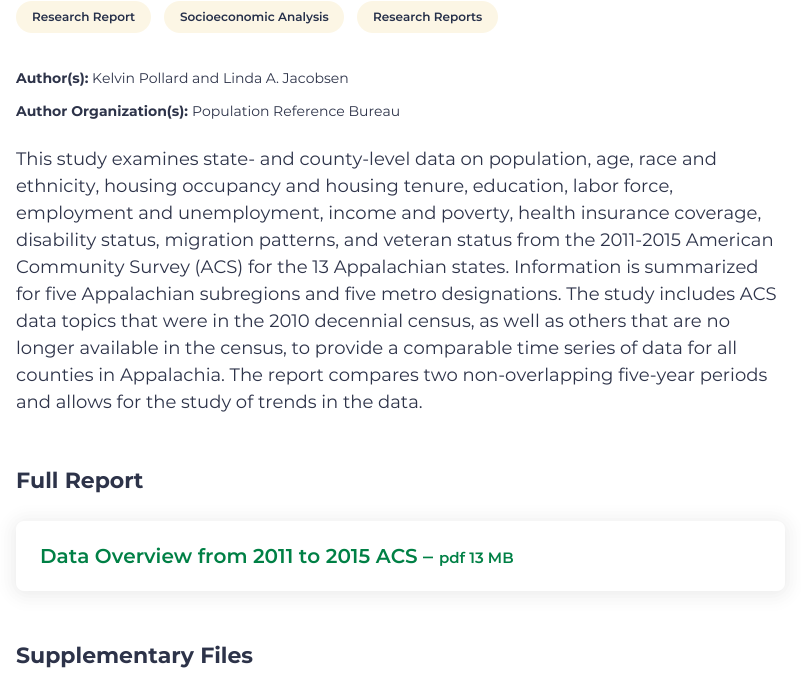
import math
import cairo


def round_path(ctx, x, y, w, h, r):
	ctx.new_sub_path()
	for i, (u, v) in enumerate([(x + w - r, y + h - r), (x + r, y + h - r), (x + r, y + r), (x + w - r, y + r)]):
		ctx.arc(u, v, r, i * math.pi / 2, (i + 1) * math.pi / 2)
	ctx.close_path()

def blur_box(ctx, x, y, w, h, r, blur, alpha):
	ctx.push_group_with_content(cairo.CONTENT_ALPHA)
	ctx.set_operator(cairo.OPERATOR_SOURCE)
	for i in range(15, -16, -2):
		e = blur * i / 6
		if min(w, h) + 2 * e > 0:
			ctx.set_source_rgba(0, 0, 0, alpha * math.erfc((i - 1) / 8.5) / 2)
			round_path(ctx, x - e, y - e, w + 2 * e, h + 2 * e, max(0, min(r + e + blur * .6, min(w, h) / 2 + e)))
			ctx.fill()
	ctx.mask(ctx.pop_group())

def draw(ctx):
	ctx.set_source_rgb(1, 1, 1)
	ctx.paint()
	ctx.set_source_rgb(0.988, 0.961, 0.898)
	round_path(ctx, 16, 1, 135, 32, 16)
	ctx.fill()
	ctx.select_font_face('Montserrat SemiBold')
	ctx.set_font_size(12)
	ctx.set_source_rgb(0.145, 0.184, 0.286)
	ctx.move_to(32, 21)
	ctx.show_text('Research Report')
	ctx.set_source_rgb(0.988, 0.961, 0.898)
	round_path(ctx, 164, 1, 180, 32, 16)
	ctx.fill()
	ctx.set_source_rgb(0.145, 0.184, 0.286)
	ctx.move_to(180, 21)
	ctx.show_text('Socioeconomic Analysis')
	ctx.set_source_rgb(0.988, 0.961, 0.898)
	round_path(ctx, 357, 1, 141, 32, 16)
	ctx.fill()
	ctx.set_source_rgb(0.145, 0.184, 0.286)
	ctx.move_to(373, 21)
	ctx.show_text('Research Reports')
	ctx.select_font_face('Montserrat', cairo.FONT_SLANT_NORMAL, cairo.FONT_WEIGHT_BOLD)
	ctx.set_font_size(14)
	ctx.set_source_rgb(0.176, 0.2, 0.286)
	ctx.move_to(16, 83)
	ctx.show_text('Author(s):')
	ctx.select_font_face('Montserrat')
	ctx.move_to(92, 83)
	ctx.show_text('Kelvin Pollard and Linda A. Jacobsen')
	ctx.select_font_face('Montserrat', cairo.FONT_SLANT_NORMAL, cairo.FONT_WEIGHT_BOLD)
	ctx.move_to(16, 116)
	ctx.show_text('Author Organization(s):')
	ctx.select_font_face('Montserrat')
	ctx.move_to(192, 116)
	ctx.show_text('Population Reference Bureau')
	ctx.set_font_size(18)
	for x, y, s in [
		(16, 165, 'This study examines state- and county-level data on population, age, race and'),
		(16, 192, 'ethnicity, housing occupancy and housing tenure, education, labor force,'),
		(16, 219, 'employment and unemployment, income and poverty, health insurance coverage,'),
		(16, 246, 'disability status, migration patterns, and veteran status from the 2011-2015 American'),
		(16, 273, 'Community Survey (ACS) for the 13 Appalachian states. Information is summarized'),
		(16, 300, 'for five Appalachian subregions and five metro designations. The study includes ACS'),
		(16, 327, 'data topics that were in the 2010 decennial census, as well as others that are no'),
		(16, 354, 'longer available in the census, to provide a comparable time series of data for all'),
		(16, 381, 'counties in Appalachia. The report compares two non-overlapping five-year periods'),
		(16, 408, 'and allows for the study of trends in the data.'),
	]:
		ctx.move_to(x, y)
		ctx.show_text(s)
	ctx.set_source_rgb(0, 0, 0)
	blur_box(ctx, 16, 523, 769, 70, 8, 10, 0.1)
	ctx.select_font_face('Montserrat', cairo.FONT_SLANT_NORMAL, cairo.FONT_WEIGHT_BOLD)
	ctx.set_font_size(22)
	ctx.set_source_rgb(0.176, 0.2, 0.286)
	ctx.move_to(16, 488)
	ctx.show_text('Full Report')
	ctx.set_source_rgb(1, 1, 1)
	round_path(ctx, 16, 521, 769, 70, 8)
	ctx.fill()
	ctx.select_font_face('Montserrat SemiBold')
	ctx.set_font_size(20)
	ctx.set_source_rgb(0, 0.502, 0.271)
	ctx.move_to(40, 563)
	ctx.show_text('Data Overview from 2011 to 2015 ACS –')
	ctx.set_font_size(15)
	ctx.move_to(439, 563)
	ctx.show_text('pdf 13 MB')
	ctx.select_font_face('Montserrat', cairo.FONT_SLANT_NORMAL, cairo.FONT_WEIGHT_BOLD)
	ctx.set_font_size(22)
	ctx.set_source_rgb(0.176, 0.2, 0.286)
	ctx.move_to(16, 663)
	ctx.show_text('Supplementary Files')


surface = cairo.ImageSurface(cairo.FORMAT_RGB24, 801, 685)
ctx = cairo.Context(surface)
options = cairo.FontOptions()
options.set_hint_metrics(cairo.HINT_METRICS_OFF)
options.set_hint_style(cairo.HINT_STYLE_NONE)
ctx.set_font_options(options)
ctx.set_miter_limit(4)
draw(ctx)
surface.write_to_png('image.png')
